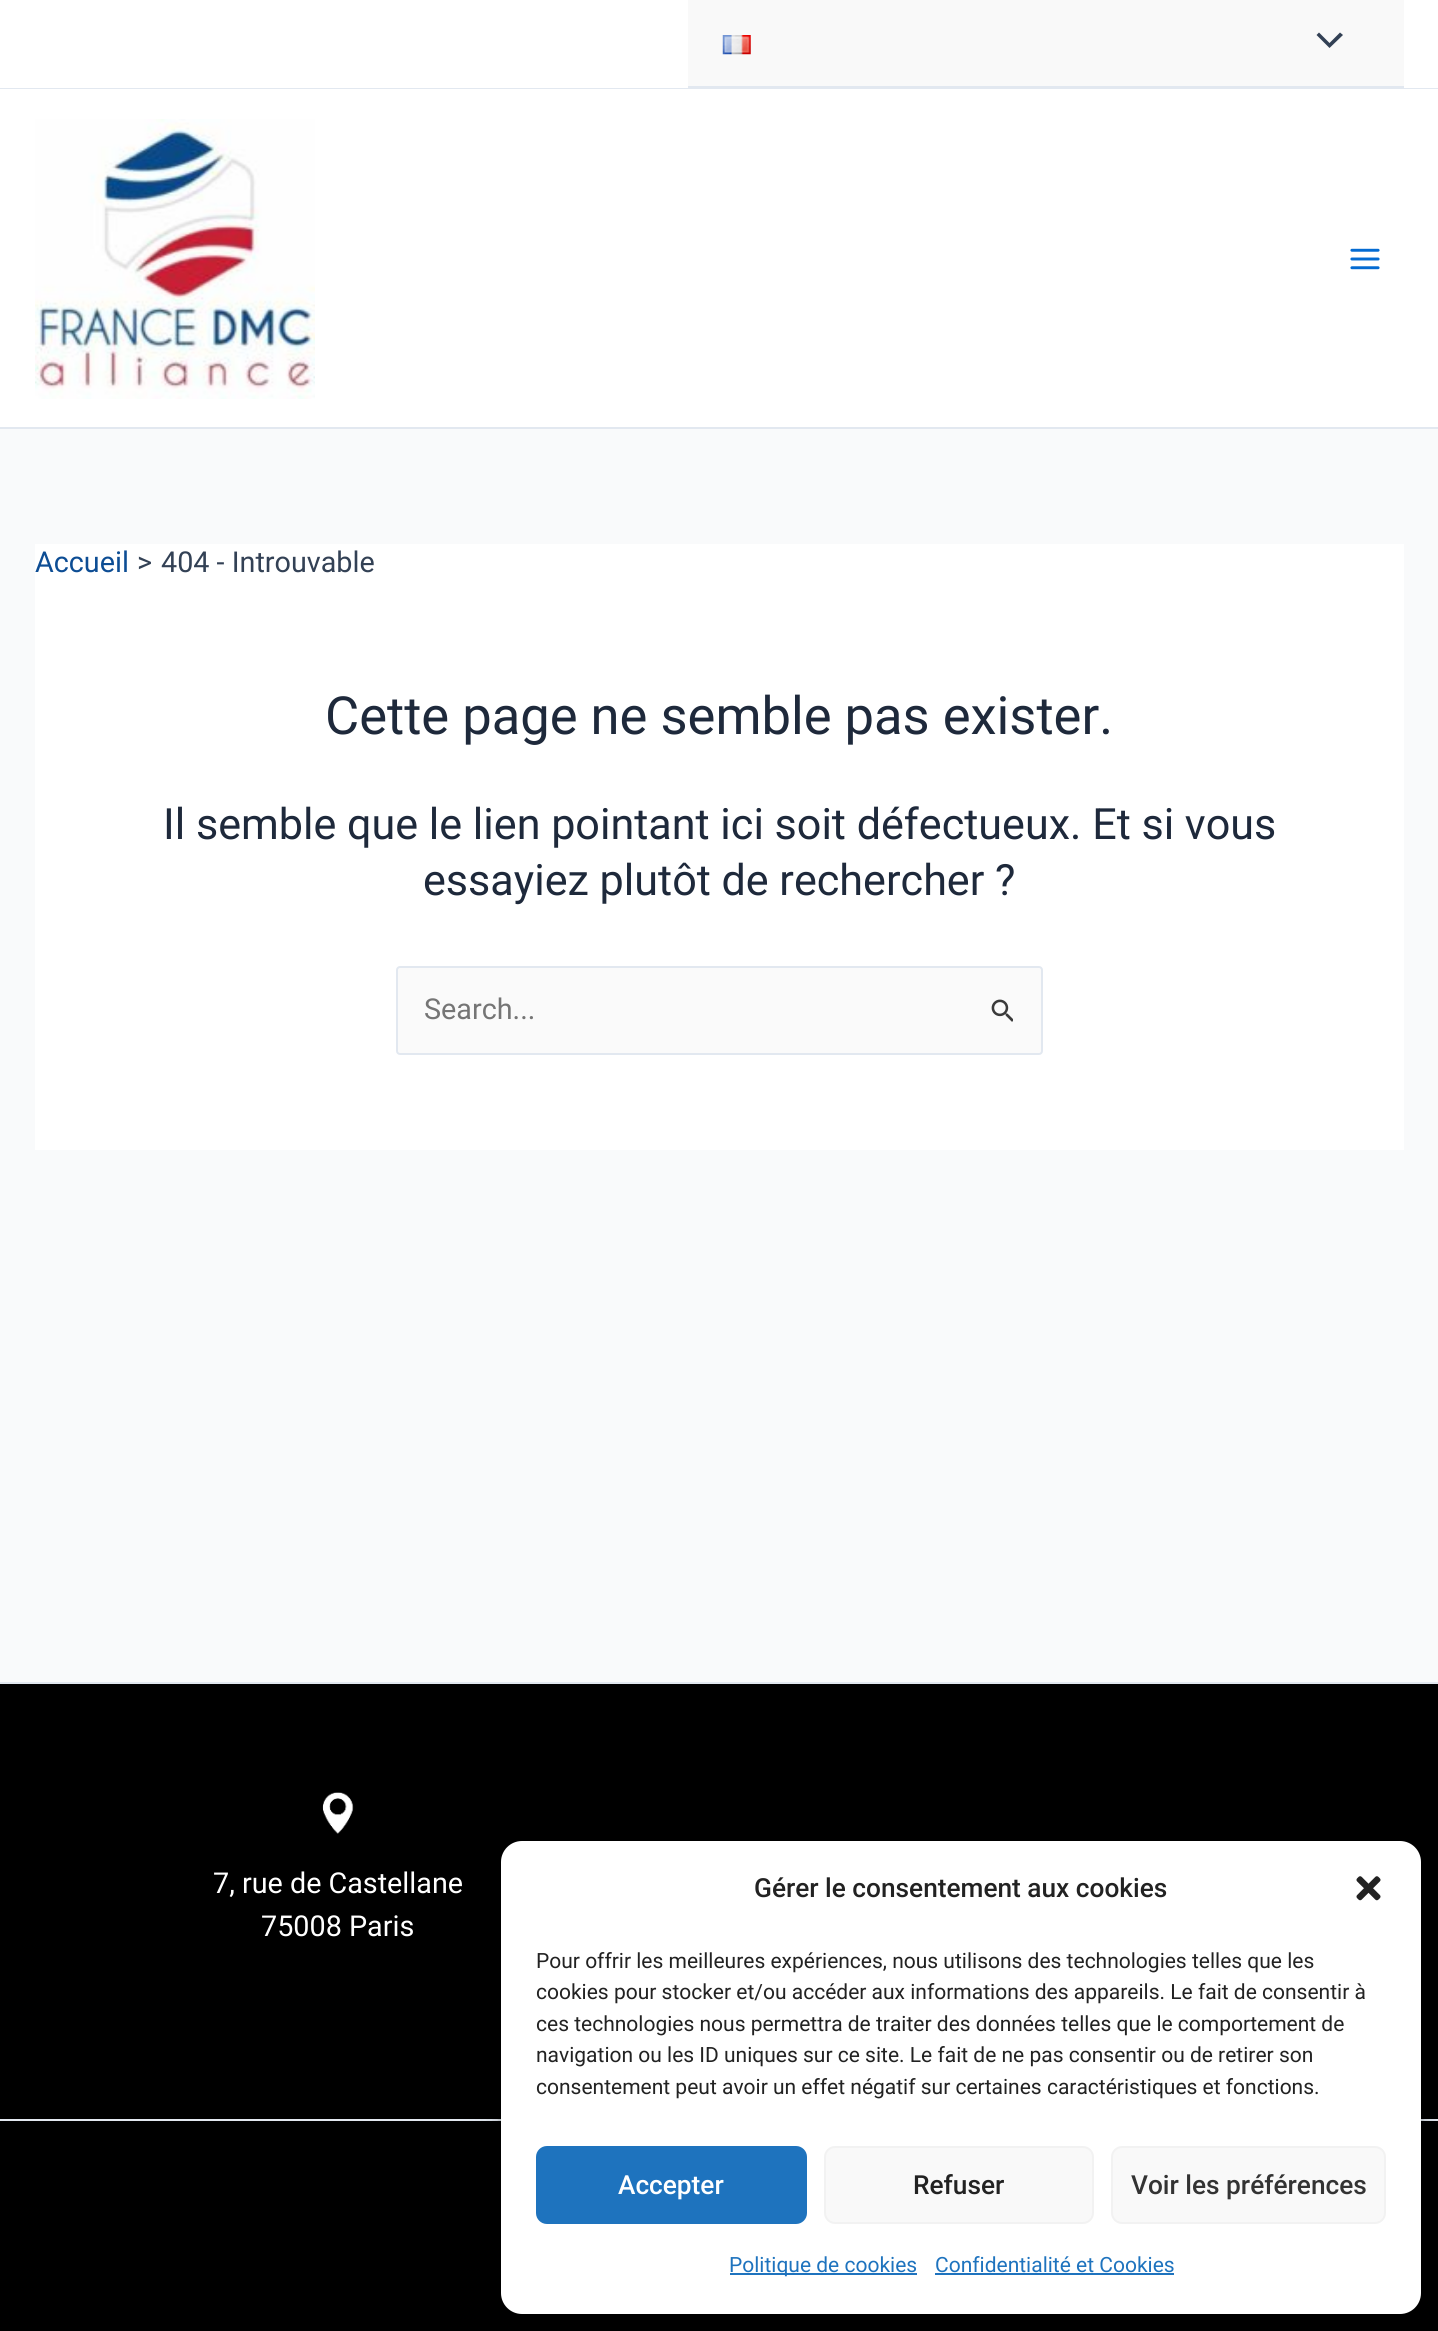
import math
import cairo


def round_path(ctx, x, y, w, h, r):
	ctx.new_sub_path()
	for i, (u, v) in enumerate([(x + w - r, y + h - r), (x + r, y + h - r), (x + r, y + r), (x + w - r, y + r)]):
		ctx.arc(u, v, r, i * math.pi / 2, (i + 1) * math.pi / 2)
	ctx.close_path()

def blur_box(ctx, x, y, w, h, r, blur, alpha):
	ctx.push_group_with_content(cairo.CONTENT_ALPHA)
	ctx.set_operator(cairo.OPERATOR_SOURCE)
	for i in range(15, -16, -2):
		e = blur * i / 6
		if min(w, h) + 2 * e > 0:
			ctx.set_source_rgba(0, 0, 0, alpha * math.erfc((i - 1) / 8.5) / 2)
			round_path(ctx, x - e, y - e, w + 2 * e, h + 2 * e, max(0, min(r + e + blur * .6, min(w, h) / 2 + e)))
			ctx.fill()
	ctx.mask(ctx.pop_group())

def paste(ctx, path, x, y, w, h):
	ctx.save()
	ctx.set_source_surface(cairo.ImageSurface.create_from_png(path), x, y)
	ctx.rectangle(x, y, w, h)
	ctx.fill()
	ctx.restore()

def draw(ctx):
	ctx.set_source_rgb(0.976, 0.98, 0.984)
	ctx.paint()
	ctx.set_source_rgb(1, 1, 1)
	ctx.rectangle(0, 0, 1438, 88)
	ctx.fill()
	ctx.set_source_rgb(0.886, 0.91, 0.941)
	ctx.rectangle(0, 88, 1438, 1)
	ctx.fill()
	ctx.set_source_rgb(0.976, 0.976, 0.976)
	ctx.rectangle(688, 0, 716, 86)
	ctx.fill()
	ctx.set_source_rgb(0.2, 0.255, 0.333)
	ctx.new_path()
	ctx.move_to(1316.5, 35)
	ctx.line_to(1329.5, 48)
	ctx.line_to(1343, 35)
	ctx.line_to(1340, 32.5)
	ctx.line_to(1329.5, 43)
	ctx.line_to(1319, 32.5)
	ctx.close_path()
	ctx.fill()
	ctx.set_source_rgb(0.886, 0.91, 0.941)
	ctx.rectangle(688, 86, 716, 2)
	ctx.fill()
	paste(ctx, 'media/1.png', 722, 35, 29, 20)
	ctx.set_source_rgb(1, 1, 1)
	ctx.rectangle(0, 89, 1438, 338)
	ctx.fill()
	ctx.set_source_rgb(0.886, 0.91, 0.941)
	ctx.rectangle(0, 427, 1438, 2)
	ctx.fill()
	paste(ctx, 'media/2.png', 35, 119, 280, 280)
	paste(ctx, 'media/3.png', 1350, 248, 30, 22)
	ctx.set_source_rgb(1, 1, 1)
	ctx.rectangle(35, 544, 1369, 606)
	ctx.fill()
	ctx.select_font_face('Roboto')
	ctx.set_font_size(28.75)
	ctx.set_source_rgb(0.051, 0.302, 0.58)
	ctx.move_to(35, 572)
	ctx.show_text('Accueil')
	ctx.set_source_rgb(0.2, 0.255, 0.333)
	ctx.move_to(137, 572)
	ctx.show_text('>')
	ctx.move_to(161, 572)
	ctx.show_text('404 - Introuvable')
	ctx.set_font_size(52.5)
	ctx.set_source_rgb(0.118, 0.161, 0.231)
	ctx.move_to(325, 734)
	ctx.show_text('Cette page ne semble pas exister.')
	ctx.set_font_size(43.1)
	ctx.move_to(163, 839)
	ctx.show_text('Il semble que le lien pointant ici soit défectueux. Et si vous')
	ctx.move_to(423, 895)
	ctx.show_text('essayiez plutôt de rechercher ?')
	ctx.set_source_rgb(0.98, 0.98, 0.98)
	round_path(ctx, 397, 967, 645, 87, 3)
	ctx.fill_preserve()
	ctx.set_source_rgb(0.886, 0.91, 0.941)
	ctx.stroke()
	ctx.set_font_size(28.75)
	ctx.set_source_rgb(0.459, 0.459, 0.459)
	ctx.move_to(424, 1019)
	ctx.show_text('Search...')
	paste(ctx, 'media/4.png', 991, 999, 22, 23)
	ctx.set_source_rgb(0, 0, 0)
	ctx.rectangle(0, 1684, 1438, 435)
	ctx.fill()
	ctx.set_source_rgb(0.886, 0.91, 0.941)
	ctx.rectangle(0, 1682, 1438, 2)
	ctx.fill()
	paste(ctx, 'media/5.png', 322, 1792, 32, 42)
	ctx.set_source_rgb(1, 1, 1)
	ctx.move_to(213, 1893)
	ctx.show_text('7, rue de Castellane')
	ctx.move_to(261, 1936)
	ctx.show_text('75008 Paris')
	ctx.set_source_rgb(0, 0, 0)
	ctx.rectangle(0, 2121, 1438, 210)
	ctx.fill()
	ctx.set_source_rgb(0.886, 0.91, 0.941)
	ctx.rectangle(0, 2119, 1438, 2)
	ctx.fill()
	ctx.set_source_rgb(0, 0, 0)
	blur_box(ctx, 501, 1852, 920, 472, 21, 5, 0.23)
	blur_box(ctx, 501, 1859, 920, 472, 21, 17.5, 0.19)
	ctx.set_source_rgb(1, 1, 1)
	round_path(ctx, 501, 1841, 920, 473, 21)
	ctx.fill()
	ctx.select_font_face('Roboto Medium')
	ctx.set_font_size(26.25)
	ctx.set_source_rgb(0.133, 0.133, 0.133)
	ctx.move_to(754, 1897)
	ctx.show_text('Gérer le consentement aux cookies')
	paste(ctx, 'media/6.png', 1356, 1876, 25, 25)
	ctx.select_font_face('Roboto')
	ctx.set_font_size(21)
	for x, y, s in [
		(536, 1968, 'Pour offrir les meilleures expériences, nous utilisons des technologies telles que les'),
		(536, 1999, 'cookies pour stocker et/ou accéder aux informations des appareils. Le fait de consentir à'),
		(536, 2031, 'ces technologies nous permettra de traiter des données telles que le comportement de'),
		(536, 2062, 'navigation ou les ID uniques sur ce site. Le fait de ne pas consentir ou de retirer son'),
		(536, 2094, 'consentement peut avoir un effet négatif sur certaines caractéristiques et fonctions.'),
	]:
		ctx.move_to(x, y)
		ctx.show_text(s)
	ctx.set_source_rgb(0.118, 0.451, 0.745)
	round_path(ctx, 537, 2147, 269, 76, 10)
	ctx.fill_preserve()
	ctx.stroke()
	ctx.select_font_face('Roboto Medium')
	ctx.set_font_size(26.25)
	ctx.set_source_rgb(1, 1, 1)
	ctx.move_to(618, 2194)
	ctx.show_text('Accepter')
	ctx.set_source_rgb(0.976, 0.976, 0.976)
	round_path(ctx, 825, 2147, 268, 76, 10)
	ctx.fill_preserve()
	ctx.set_source_rgb(0.949, 0.949, 0.949)
	ctx.stroke()
	ctx.set_source_rgb(0.133, 0.133, 0.133)
	ctx.move_to(913, 2194)
	ctx.show_text('Refuser')
	ctx.set_source_rgb(0.976, 0.976, 0.976)
	round_path(ctx, 1112, 2147, 273, 76, 10)
	ctx.fill_preserve()
	ctx.set_source_rgb(0.949, 0.949, 0.949)
	ctx.stroke()
	ctx.set_source_rgb(0.2, 0.2, 0.2)
	ctx.move_to(1131, 2194)
	ctx.show_text('Voir les préférences')
	ctx.set_source_rgb(0.118, 0.451, 0.745)
	ctx.rectangle(730, 2273, 187, 2)
	ctx.fill()
	ctx.select_font_face('Roboto')
	ctx.set_font_size(21)
	ctx.move_to(729, 2272)
	ctx.show_text('Politique de cookies')
	ctx.move_to(935, 2272)
	ctx.show_text('Confidentialité et Cookies')
	ctx.rectangle(935, 2273, 239, 2)
	ctx.fill()


surface = cairo.ImageSurface(cairo.FORMAT_RGB24, 1438, 2331)
ctx = cairo.Context(surface)
options = cairo.FontOptions()
options.set_hint_metrics(cairo.HINT_METRICS_OFF)
options.set_hint_style(cairo.HINT_STYLE_NONE)
ctx.set_font_options(options)
ctx.set_miter_limit(4)
draw(ctx)
surface.write_to_png('image.png')
